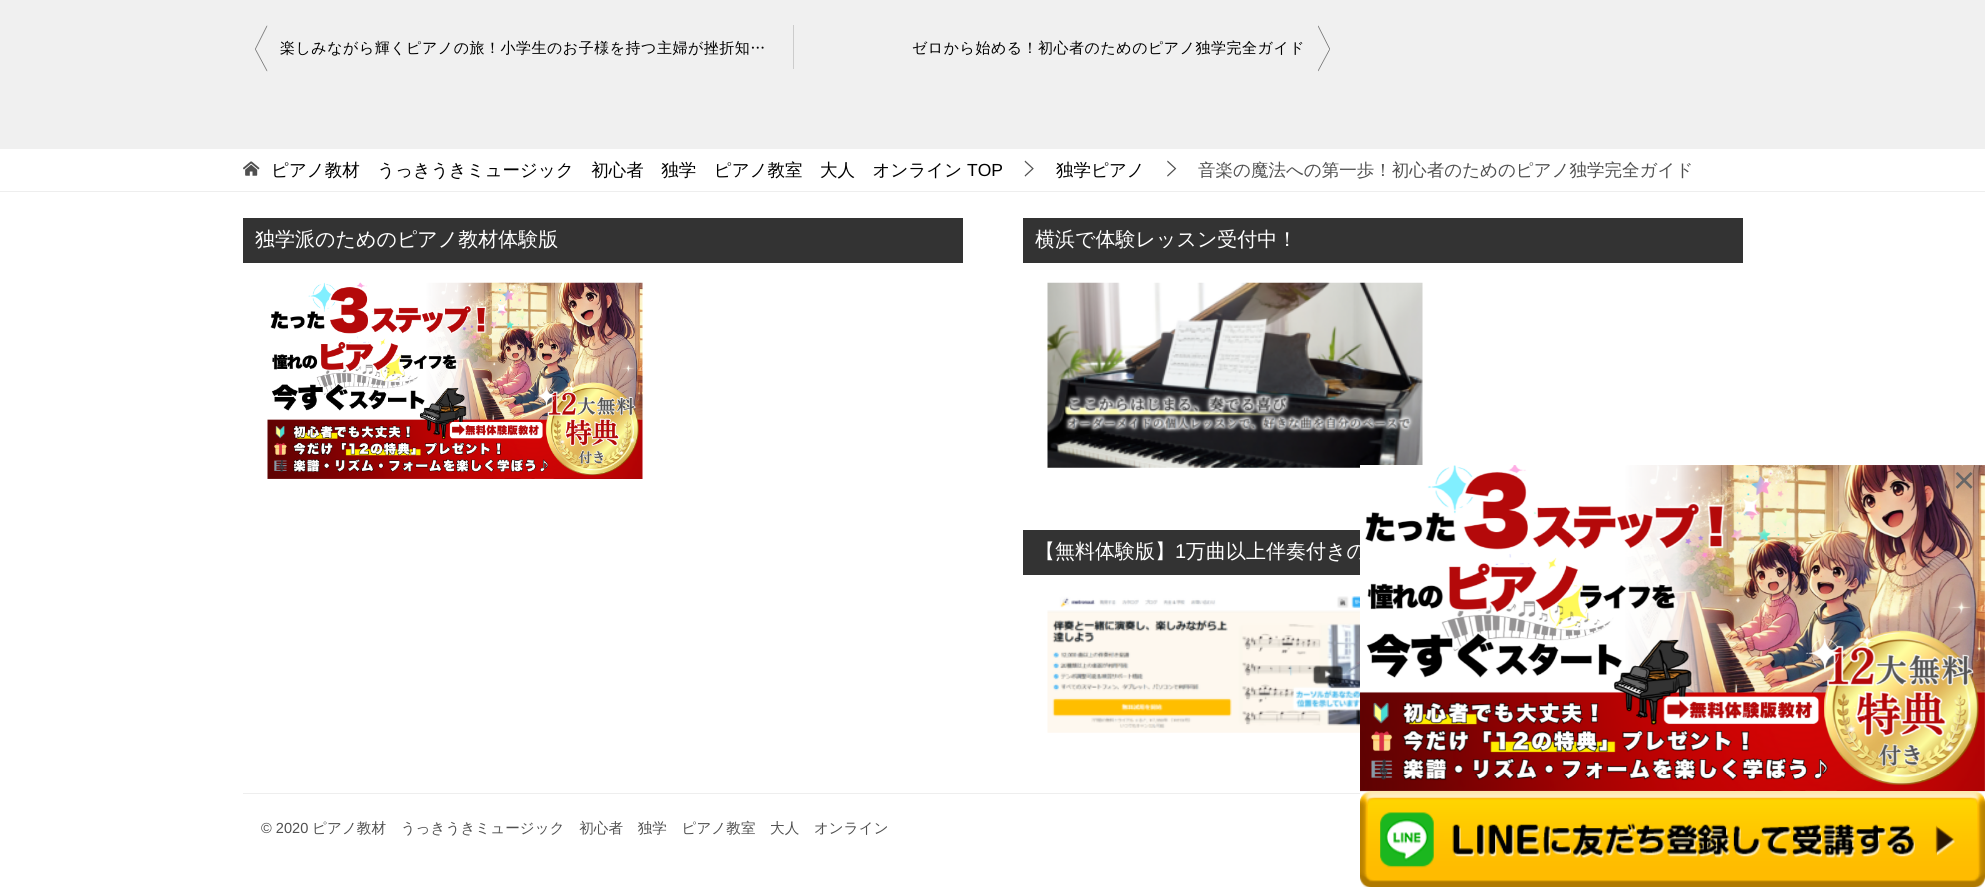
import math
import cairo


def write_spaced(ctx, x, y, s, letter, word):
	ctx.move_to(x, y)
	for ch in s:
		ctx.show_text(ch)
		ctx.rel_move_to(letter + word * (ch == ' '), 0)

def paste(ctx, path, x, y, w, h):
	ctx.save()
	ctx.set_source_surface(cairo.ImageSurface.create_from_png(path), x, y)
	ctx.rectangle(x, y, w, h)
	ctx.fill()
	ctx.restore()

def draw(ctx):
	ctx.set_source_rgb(0.941, 0.941, 0.941)
	ctx.paint()
	paste(ctx, 'media/1.png', 255, 25, 13, 47)
	ctx.select_font_face('WenQuanYi Zen Hei Medium')
	ctx.set_font_size(15)
	ctx.set_source_rgb(0, 0, 0)
	write_spaced(ctx, 280, 53, '楽しみながら輝くピアノの旅！小学生のお子様を持つ主婦が挫折知…', 0.5, 0)
	ctx.set_source_rgb(0.8, 0.8, 0.8)
	ctx.rectangle(793, 25, 1, 44)
	ctx.fill()
	paste(ctx, 'media/2.png', 1318, 25, 12, 47)
	ctx.set_source_rgb(0, 0, 0)
	write_spaced(ctx, 912, 53, 'ゼロから始める！初心者のためのピアノ独学完全ガイド', 0.5, 0)
	ctx.set_source_rgb(1, 1, 1)
	ctx.rectangle(0, 149, 1985, 738)
	ctx.fill()
	ctx.set_source_rgb(0.933, 0.933, 0.933)
	ctx.rectangle(0, 191, 1985, 1)
	ctx.fill()
	paste(ctx, 'media/3.png', 243, 161, 17, 15)
	ctx.set_font_size(17.5)
	ctx.set_source_rgb(0, 0, 0)
	ctx.move_to(271, 176)
	ctx.show_text('ピアノ教材　うっきうきミュージック　初心者　独学　ピアノ教室　大人　オンライン')
	ctx.select_font_face('Liberation Sans')
	ctx.move_to(967, 176)
	ctx.show_text('TOP')
	paste(ctx, 'media/4.png', 1024, 160, 10, 17)
	ctx.select_font_face('WenQuanYi Zen Hei Medium')
	ctx.move_to(1056, 176)
	ctx.show_text('独学ピアノ')
	paste(ctx, 'media/5.png', 1167, 160, 10, 17)
	ctx.set_source_rgb(0.314, 0.314, 0.314)
	ctx.move_to(1198, 176)
	ctx.show_text('音楽の魔法への第一歩！初心者のためのピアノ独学完全ガイド')
	ctx.set_source_rgb(0.2, 0.2, 0.2)
	ctx.rectangle(243, 218, 720, 45)
	ctx.fill()
	ctx.set_font_size(20)
	ctx.set_source_rgb(1, 1, 1)
	ctx.move_to(255, 246)
	ctx.show_text('独学派のためのピアノ教材体験版')
	paste(ctx, 'media/6.png', 267, 282, 376, 197)
	ctx.set_source_rgb(0.2, 0.2, 0.2)
	ctx.rectangle(1023, 218, 720, 45)
	ctx.fill()
	ctx.set_source_rgb(1, 1, 1)
	ctx.move_to(1035, 246)
	ctx.show_text('横浜で体験レッスン受付中！')
	paste(ctx, 'media/7.png', 1047, 282, 376, 186)
	ctx.set_source_rgb(0.2, 0.2, 0.2)
	ctx.rectangle(1023, 530, 337, 45)
	ctx.fill()
	ctx.set_source_rgb(1, 1, 1)
	ctx.move_to(1035, 558)
	ctx.show_text('【無料体験版】')
	ctx.select_font_face('Liberation Sans')
	ctx.move_to(1175, 558)
	ctx.show_text('1')
	ctx.select_font_face('WenQuanYi Zen Hei Medium')
	ctx.move_to(1186, 558)
	ctx.show_text('万曲以上伴奏付きの')
	paste(ctx, 'media/8.png', 1047, 596, 313, 137)
	ctx.set_source_rgb(0.933, 0.933, 0.933)
	ctx.rectangle(243, 793, 1117, 1)
	ctx.fill()
	ctx.select_font_face('Liberation Sans')
	ctx.set_font_size(14.6)
	ctx.set_source_rgb(0.314, 0.314, 0.314)
	ctx.move_to(261, 833)
	ctx.show_text('© 2020')
	ctx.select_font_face('WenQuanYi Zen Hei Medium')
	ctx.move_to(312, 833)
	ctx.show_text('ピアノ教材　うっきうきミュージック　初心者　独学　ピアノ教室　大人　オンライン')
	ctx.set_source_rgb(1, 1, 1)
	ctx.rectangle(1360, 465, 63, 3)
	ctx.fill()
	paste(ctx, 'media/9.png', 1360, 465, 625, 327)
	paste(ctx, 'media/10.png', 1360, 791, 625, 96)
	ctx.select_font_face('Liberation Sans')
	ctx.set_font_size(38)
	ctx.set_source_rgb(0.4, 0.4, 0.4)
	ctx.move_to(1953, 493)
	ctx.show_text('×')


surface = cairo.ImageSurface(cairo.FORMAT_RGB24, 1985, 887)
ctx = cairo.Context(surface)
options = cairo.FontOptions()
options.set_hint_metrics(cairo.HINT_METRICS_OFF)
options.set_hint_style(cairo.HINT_STYLE_NONE)
ctx.set_font_options(options)
ctx.set_miter_limit(4)
draw(ctx)
surface.write_to_png('image.png')
